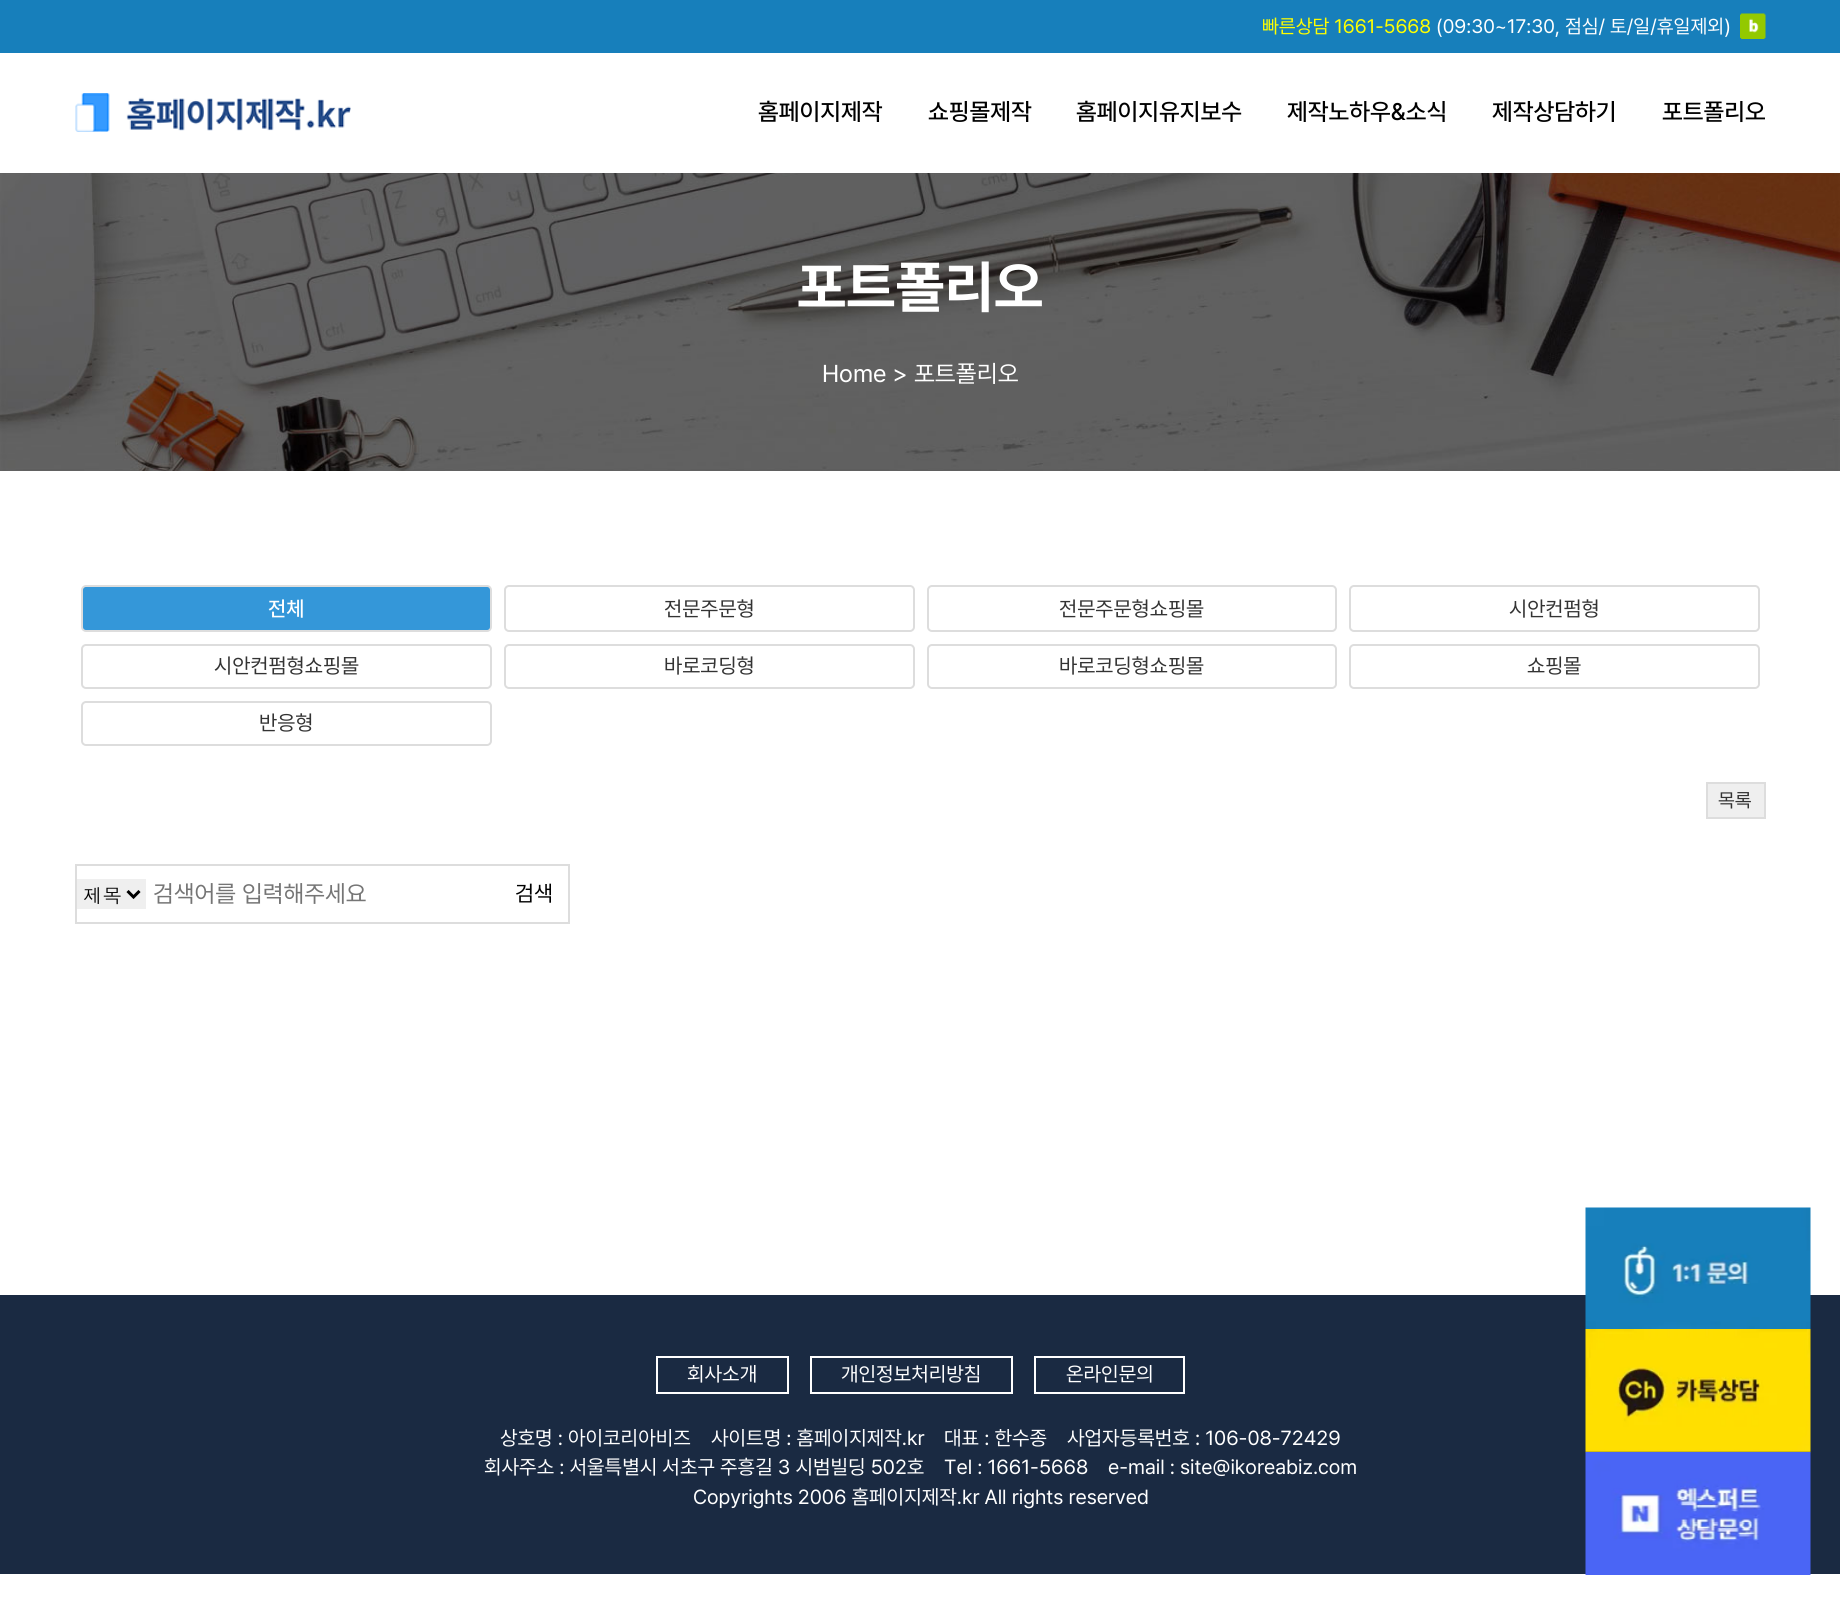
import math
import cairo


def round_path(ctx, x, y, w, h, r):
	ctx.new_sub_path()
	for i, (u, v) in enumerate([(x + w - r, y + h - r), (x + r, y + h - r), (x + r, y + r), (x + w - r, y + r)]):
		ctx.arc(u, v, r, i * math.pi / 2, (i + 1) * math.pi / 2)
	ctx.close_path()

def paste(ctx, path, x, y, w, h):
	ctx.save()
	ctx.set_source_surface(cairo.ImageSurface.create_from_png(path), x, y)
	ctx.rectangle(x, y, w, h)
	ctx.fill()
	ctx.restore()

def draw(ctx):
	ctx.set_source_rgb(1, 1, 1)
	ctx.paint()
	ctx.set_source_rgb(0.09, 0.498, 0.733)
	ctx.rectangle(0, 0, 1840, 53)
	ctx.fill()
	ctx.select_font_face('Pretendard')
	ctx.set_font_size(19.5)
	ctx.set_source_rgb(1, 1, 0)
	ctx.move_to(1262, 33)
	ctx.show_text('빠른상담 1661-5668')
	ctx.set_source_rgb(1, 1, 1)
	ctx.move_to(1436, 33)
	ctx.show_text('(09:30~17:30, 점심/ 토/일/휴일제외)')
	paste(ctx, 'media/1.png', 1740, 13, 26, 26)
	paste(ctx, 'media/2.png', 75, 93, 276, 39)
	ctx.select_font_face('Pretendard Medium')
	ctx.set_font_size(24)
	ctx.set_source_rgb(0, 0, 0)
	for x, y, s in [
		(758, 120, '홈페이지제작'),
		(928, 120, '쇼핑몰제작'),
		(1076, 120, '홈페이지유지보수'),
		(1287, 120, '제작노하우&소식'),
		(1492, 120, '제작상담하기'),
		(1662, 120, '포트폴리오'),
	]:
		ctx.move_to(x, y)
		ctx.show_text(s)
	paste(ctx, 'media/3.png', 0, 173, 1840, 298)
	ctx.select_font_face('Pretendard', cairo.FONT_SLANT_NORMAL, cairo.FONT_WEIGHT_BOLD)
	ctx.set_font_size(57)
	ctx.set_source_rgb(1, 1, 1)
	ctx.move_to(797, 307)
	ctx.show_text('포트폴리오')
	ctx.select_font_face('Pretendard')
	ctx.set_font_size(24.25)
	ctx.move_to(822, 382)
	ctx.show_text('Home > 포트폴리오')
	ctx.set_source_rgb(0.204, 0.592, 0.851)
	round_path(ctx, 82, 586, 409, 45, 4)
	ctx.fill_preserve()
	ctx.set_source_rgb(0.867, 0.867, 0.867)
	ctx.stroke()
	ctx.select_font_face('Pretendard Medium')
	ctx.set_font_size(21)
	ctx.set_source_rgb(1, 1, 1)
	ctx.move_to(268, 616)
	ctx.show_text('전체')
	round_path(ctx, 505, 586, 409, 45, 4)
	ctx.set_source_rgb(0.867, 0.867, 0.867)
	ctx.stroke()
	ctx.select_font_face('Pretendard')
	ctx.set_source_rgb(0.2, 0.2, 0.2)
	ctx.move_to(664, 616)
	ctx.show_text('전문주문형')
	round_path(ctx, 928, 586, 408, 45, 4)
	ctx.set_source_rgb(0.867, 0.867, 0.867)
	ctx.stroke()
	ctx.set_source_rgb(0.2, 0.2, 0.2)
	ctx.move_to(1059, 616)
	ctx.show_text('전문주문형쇼핑몰')
	round_path(ctx, 1350, 586, 409, 45, 4)
	ctx.set_source_rgb(0.867, 0.867, 0.867)
	ctx.stroke()
	ctx.set_source_rgb(0.2, 0.2, 0.2)
	ctx.move_to(1509, 616)
	ctx.show_text('시안컨펌형')
	round_path(ctx, 82, 645, 409, 43, 4)
	ctx.set_source_rgb(0.867, 0.867, 0.867)
	ctx.stroke()
	ctx.set_source_rgb(0.2, 0.2, 0.2)
	ctx.move_to(214, 673)
	ctx.show_text('시안컨펌형쇼핑몰')
	round_path(ctx, 505, 645, 409, 43, 4)
	ctx.set_source_rgb(0.867, 0.867, 0.867)
	ctx.stroke()
	ctx.set_source_rgb(0.2, 0.2, 0.2)
	ctx.move_to(664, 673)
	ctx.show_text('바로코딩형')
	round_path(ctx, 928, 645, 408, 43, 4)
	ctx.set_source_rgb(0.867, 0.867, 0.867)
	ctx.stroke()
	ctx.set_source_rgb(0.2, 0.2, 0.2)
	ctx.move_to(1059, 673)
	ctx.show_text('바로코딩형쇼핑몰')
	round_path(ctx, 1350, 645, 409, 43, 4)
	ctx.set_source_rgb(0.867, 0.867, 0.867)
	ctx.stroke()
	ctx.set_source_rgb(0.2, 0.2, 0.2)
	ctx.move_to(1527, 673)
	ctx.show_text('쇼핑몰')
	round_path(ctx, 82, 702, 409, 43, 4)
	ctx.set_source_rgb(0.867, 0.867, 0.867)
	ctx.stroke()
	ctx.set_source_rgb(0.2, 0.2, 0.2)
	ctx.move_to(259, 730)
	ctx.show_text('반응형')
	ctx.set_source_rgb(0.937, 0.937, 0.937)
	ctx.rectangle(1707, 783, 58, 35)
	ctx.fill_preserve()
	ctx.set_source_rgb(0.867, 0.867, 0.867)
	ctx.stroke()
	ctx.set_font_size(19.5)
	ctx.set_source_rgb(0.2, 0.2, 0.2)
	ctx.move_to(1718, 807)
	ctx.show_text('목록')
	ctx.rectangle(76, 865, 493, 58)
	ctx.set_source_rgb(0.867, 0.867, 0.867)
	ctx.stroke()
	ctx.set_source_rgb(0.937, 0.937, 0.937)
	ctx.rectangle(77, 879, 69, 30)
	ctx.fill()
	ctx.new_path()
	ctx.move_to(127.5, 891)
	ctx.line_to(133.5, 897)
	ctx.line_to(139.5, 891)
	ctx.set_source_rgb(0, 0, 0)
	ctx.set_line_width(3)
	ctx.stroke()
	ctx.select_font_face('Dotum')
	ctx.move_to(83, 903)
	ctx.show_text('제목')
	ctx.select_font_face('Pretendard')
	ctx.set_font_size(24)
	ctx.set_source_rgb(0.459, 0.459, 0.459)
	ctx.move_to(153, 902)
	ctx.show_text('검색어를 입력해주세요')
	ctx.set_font_size(22)
	ctx.set_source_rgb(0, 0, 0)
	ctx.move_to(515, 901)
	ctx.show_text('검색')
	ctx.set_source_rgb(0.102, 0.165, 0.259)
	ctx.rectangle(0, 1295, 1840, 279)
	ctx.fill()
	ctx.rectangle(657, 1357, 131, 36)
	ctx.set_source_rgb(1, 1, 1)
	ctx.set_line_width(2)
	ctx.stroke()
	ctx.set_font_size(20.3)
	ctx.move_to(687, 1381)
	ctx.show_text('회사소개')
	ctx.rectangle(811, 1357, 201, 36)
	ctx.stroke()
	ctx.move_to(841, 1381)
	ctx.show_text('개인정보처리방침')
	ctx.rectangle(1035, 1357, 149, 36)
	ctx.stroke()
	for x, y, s in [
		(1066, 1381, '온라인문의'),
		(500, 1445, '상호명 : 아이코리아비즈'),
		(711, 1445, '사이트명 : 홈페이지제작.kr'),
		(944, 1445, '대표 : 한수종'),
		(1067, 1445, '사업자등록번호 : 106-08-72429'),
		(484, 1474, '회사주소 : 서울특별시 서초구 주흥길 3 시범빌딩 502호'),
		(944, 1474, 'Tel : 1661-5668'),
		(1108, 1474, 'e-mail : site@ikoreabiz.com'),
		(693, 1504, 'Copyrights 2006 홈페이지제작.kr All rights reserved'),
	]:
		ctx.move_to(x, y)
		ctx.show_text(s)
	paste(ctx, 'media/4.png', 1585, 1207, 226, 122)
	paste(ctx, 'media/5.png', 1585, 1329, 226, 124)
	paste(ctx, 'media/6.png', 1585, 1452, 226, 123)


surface = cairo.ImageSurface(cairo.FORMAT_RGB24, 1840, 1604)
ctx = cairo.Context(surface)
options = cairo.FontOptions()
options.set_hint_metrics(cairo.HINT_METRICS_OFF)
options.set_hint_style(cairo.HINT_STYLE_NONE)
ctx.set_font_options(options)
ctx.set_miter_limit(4)
draw(ctx)
surface.write_to_png('image.png')
